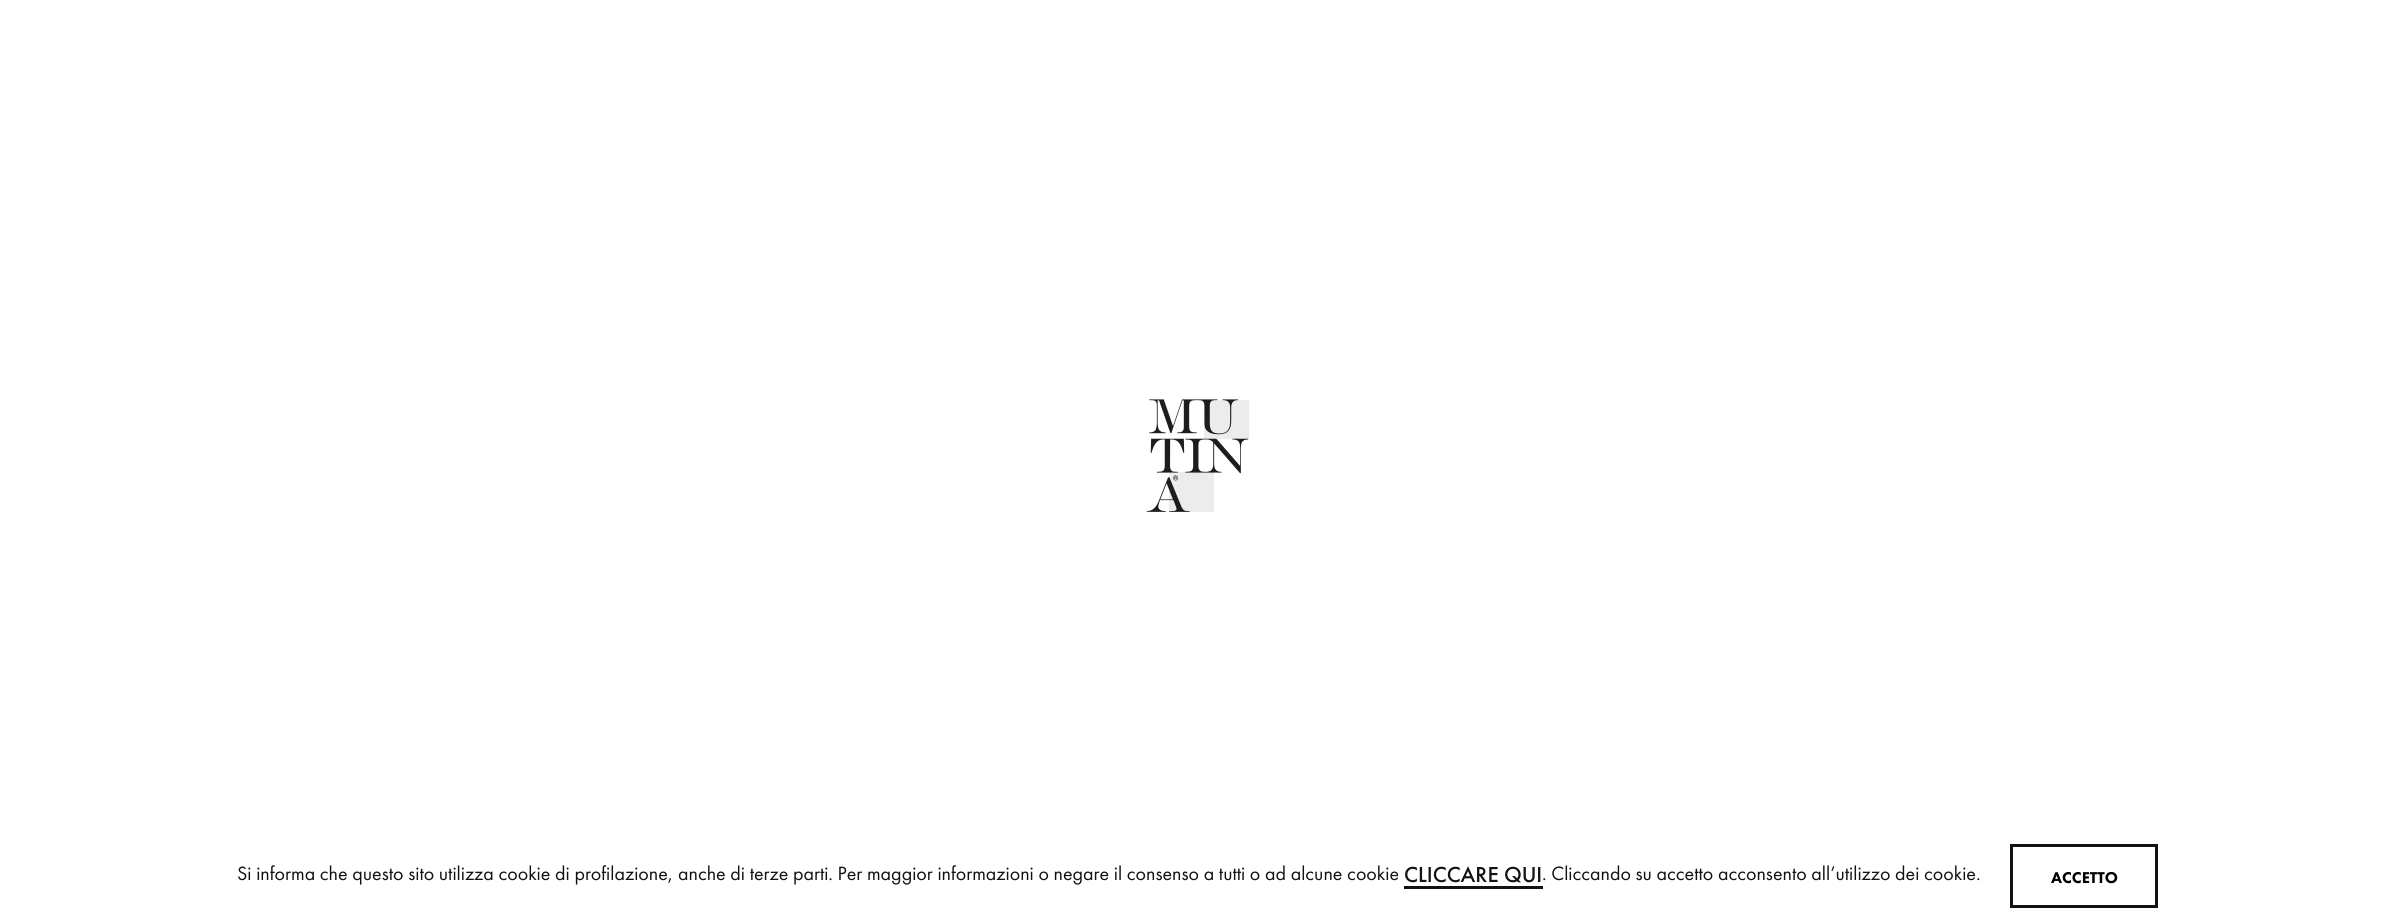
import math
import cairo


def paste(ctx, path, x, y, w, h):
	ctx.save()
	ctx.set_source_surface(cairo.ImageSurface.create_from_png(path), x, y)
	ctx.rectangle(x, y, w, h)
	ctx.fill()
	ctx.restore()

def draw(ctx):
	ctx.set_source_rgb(1, 1, 1)
	ctx.paint()
	paste(ctx, 'media/1.png', 1146, 399, 103, 113)
	ctx.select_font_face('Futura PT')
	ctx.set_font_size(20)
	ctx.set_source_rgb(0.071, 0.071, 0.071)
	ctx.move_to(237, 880)
	ctx.show_text('Si informa che questo sito utilizza cookie di profilazione, anche di terze parti. Per maggior informazioni o negare il consenso a tutti o ad alcune cookie')
	ctx.select_font_face('Futura PT Medium')
	ctx.set_font_size(22.5)
	ctx.move_to(1404, 882)
	ctx.show_text('CLICCARE QUI')
	ctx.rectangle(1404, 886, 139, 3)
	ctx.fill()
	ctx.select_font_face('Futura PT')
	ctx.set_font_size(20)
	ctx.move_to(1542, 880)
	ctx.show_text('. Cliccando su accetto acconsento all’utilizzo dei cookie.')
	ctx.rectangle(2011.5, 845.5, 145, 61)
	ctx.set_line_width(3)
	ctx.stroke()
	ctx.select_font_face('Futura PT Black')
	ctx.set_font_size(16.25)
	ctx.set_source_rgb(0, 0, 0)
	ctx.move_to(2051, 883)
	ctx.show_text('ACCETTO')


surface = cairo.ImageSurface(cairo.FORMAT_RGB24, 2395, 922)
ctx = cairo.Context(surface)
options = cairo.FontOptions()
options.set_hint_metrics(cairo.HINT_METRICS_OFF)
options.set_hint_style(cairo.HINT_STYLE_NONE)
ctx.set_font_options(options)
ctx.set_miter_limit(4)
draw(ctx)
surface.write_to_png('image.png')
